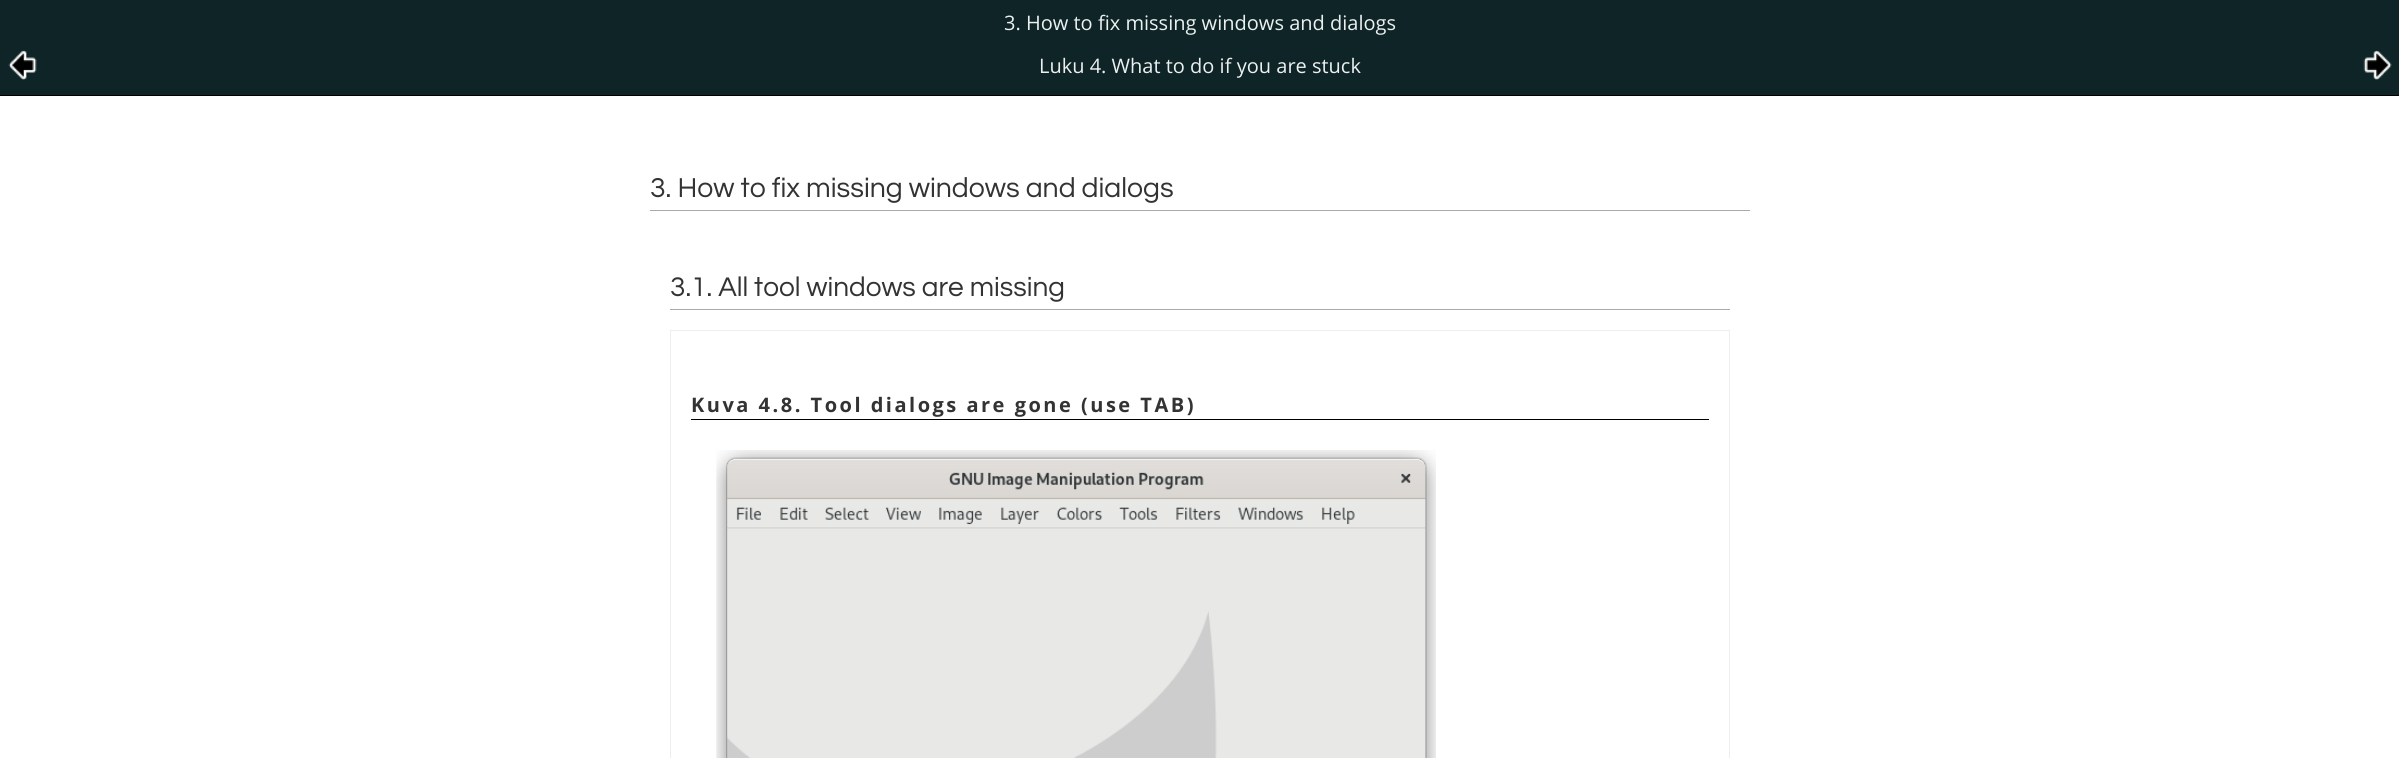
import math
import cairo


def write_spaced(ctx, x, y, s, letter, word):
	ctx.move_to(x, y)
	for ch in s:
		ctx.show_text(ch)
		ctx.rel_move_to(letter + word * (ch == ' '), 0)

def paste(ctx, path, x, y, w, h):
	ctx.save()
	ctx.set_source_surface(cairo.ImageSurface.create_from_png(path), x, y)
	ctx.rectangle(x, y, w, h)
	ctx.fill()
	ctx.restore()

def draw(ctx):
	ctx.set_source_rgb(1, 1, 1)
	ctx.paint()
	ctx.set_source_rgb(0.055, 0.141, 0.149)
	ctx.rectangle(0, 0, 2399, 95)
	ctx.fill()
	ctx.set_source_rgb(0, 0, 0)
	ctx.rectangle(0, 95, 2399, 1)
	ctx.fill()
	ctx.select_font_face('Open Sans')
	ctx.set_font_size(20)
	ctx.set_source_rgb(0.925, 0.941, 0.945)
	ctx.move_to(1004, 30)
	ctx.show_text('3. How to fix missing windows and dialogs')
	paste(ctx, 'media/1.png', 8, 50, 29, 30)
	ctx.move_to(1039, 73)
	ctx.show_text('Luku 4. What to do if you are stuck')
	paste(ctx, 'media/2.png', 2363, 50, 29, 30)
	ctx.set_source_rgb(0.667, 0.667, 0.667)
	ctx.rectangle(650, 210, 1100, 1)
	ctx.fill()
	ctx.select_font_face('Questrial')
	ctx.set_font_size(28.4)
	ctx.set_source_rgb(0.2, 0.2, 0.2)
	ctx.move_to(650, 197)
	ctx.show_text('3. How to fix missing windows and dialogs')
	ctx.set_source_rgb(0.667, 0.667, 0.667)
	ctx.rectangle(670, 309, 1060, 1)
	ctx.fill()
	ctx.set_font_size(28)
	ctx.set_source_rgb(0.2, 0.2, 0.2)
	ctx.move_to(670, 296)
	ctx.show_text('3.1. All tool windows are missing')
	ctx.rectangle(670.5, 330.5, 1059, 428)
	ctx.set_source_rgb(0.933, 0.933, 0.925)
	ctx.set_line_width(1)
	ctx.stroke()
	ctx.set_source_rgb(0, 0, 0)
	ctx.rectangle(691, 419, 1018, 1)
	ctx.fill()
	ctx.select_font_face('Open Sans', cairo.FONT_SLANT_NORMAL, cairo.FONT_WEIGHT_BOLD)
	ctx.set_font_size(20)
	ctx.set_source_rgb(0.2, 0.2, 0.2)
	write_spaced(ctx, 691, 412, 'Kuva 4.8. Tool dialogs are gone (use TAB)', 2.5, 0)
	paste(ctx, 'media/3.png', 716, 450, 720, 308)


surface = cairo.ImageSurface(cairo.FORMAT_RGB24, 2399, 758)
ctx = cairo.Context(surface)
options = cairo.FontOptions()
options.set_hint_metrics(cairo.HINT_METRICS_OFF)
options.set_hint_style(cairo.HINT_STYLE_NONE)
ctx.set_font_options(options)
ctx.set_miter_limit(4)
draw(ctx)
surface.write_to_png('image.png')
